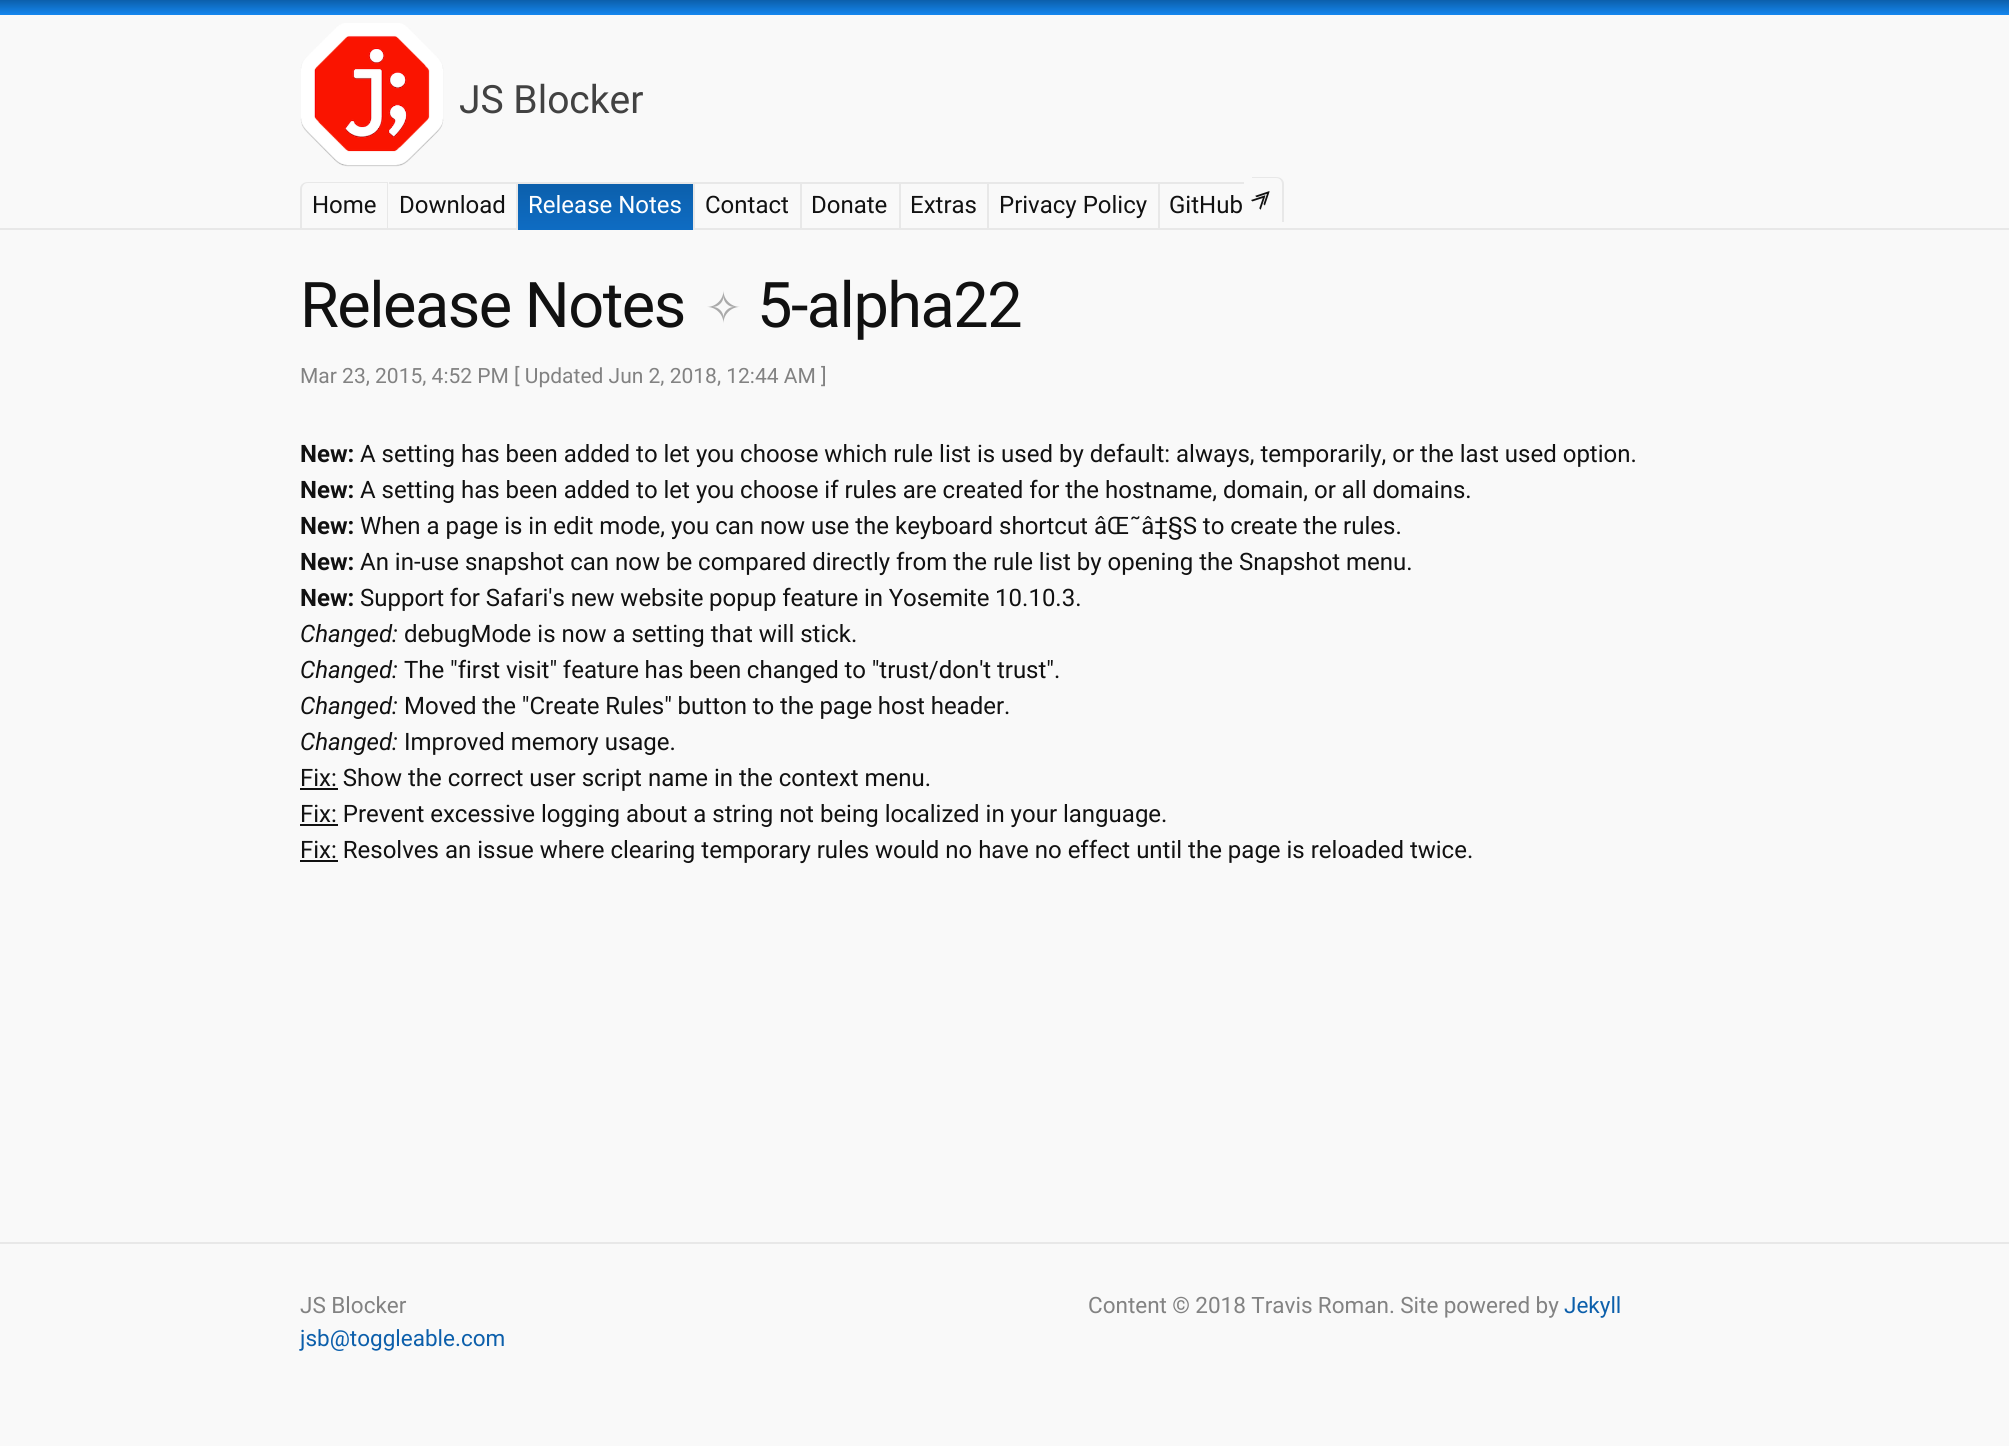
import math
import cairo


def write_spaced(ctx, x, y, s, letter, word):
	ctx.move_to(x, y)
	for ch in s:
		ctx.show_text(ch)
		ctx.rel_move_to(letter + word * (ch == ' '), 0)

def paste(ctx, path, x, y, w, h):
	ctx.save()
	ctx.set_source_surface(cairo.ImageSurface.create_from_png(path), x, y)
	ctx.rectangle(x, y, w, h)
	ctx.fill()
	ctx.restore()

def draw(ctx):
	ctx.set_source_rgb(0.973, 0.973, 0.973)
	ctx.paint()
	ctx.set_source_rgb(0.91, 0.91, 0.91)
	ctx.rectangle(0, 228, 2009, 2)
	ctx.fill()
	gradient = cairo.LinearGradient(1005, 0, 1005, 15)
	gradient.add_color_stop_rgba(0, 0.047, 0.373, 0.671, 1)
	gradient.add_color_stop_rgba(1, 0.082, 0.529, 0.937, 1)
	ctx.set_source(gradient)
	ctx.rectangle(0, 0, 2009, 15)
	ctx.fill()
	paste(ctx, 'media/1.png', 300, 23, 144, 144)
	ctx.select_font_face('Roboto')
	ctx.set_font_size(39)
	ctx.set_source_rgb(0.259, 0.259, 0.259)
	ctx.move_to(459, 113)
	ctx.show_text('JS Blocker')
	ctx.set_source_rgb(0.91, 0.91, 0.91)
	ctx.set_fill_rule(cairo.FILL_RULE_EVEN_ODD)
	ctx.new_path()
	ctx.move_to(308, 182)
	ctx.line_to(388, 182)
	ctx.line_to(388, 230)
	ctx.line_to(300, 230)
	ctx.line_to(300, 189)
	ctx.curve_to(300, 185, 303, 182, 308, 182)
	ctx.close_path()
	ctx.move_to(308, 183)
	ctx.line_to(387, 183)
	ctx.line_to(387, 230)
	ctx.line_to(302, 230)
	ctx.line_to(302, 189)
	ctx.curve_to(302, 186, 304, 183, 308, 183)
	ctx.close_path()
	ctx.fill()
	ctx.set_font_size(24)
	ctx.set_source_rgb(0.067, 0.067, 0.067)
	ctx.move_to(312, 213)
	ctx.show_text('Home')
	ctx.move_to(399, 213)
	ctx.show_text('Download')
	ctx.set_source_rgb(0.91, 0.91, 0.91)
	ctx.rectangle(389, 182, 412, 2)
	ctx.fill()
	ctx.rectangle(516, 182, 2, 48)
	ctx.fill()
	gradient = cairo.LinearGradient(605, 183, 605, 230)
	gradient.add_color_stop_rgba(0, 0.047, 0.373, 0.671, 1)
	gradient.add_color_stop_rgba(1, 0.055, 0.424, 0.765, 1)
	ctx.set_source(gradient)
	ctx.rectangle(518, 184, 175, 46)
	ctx.fill()
	ctx.set_source_rgb(1, 1, 1)
	ctx.move_to(528, 213)
	ctx.show_text('Release Notes')
	ctx.set_source_rgb(0.91, 0.91, 0.91)
	ctx.rectangle(693, 182, 2, 48)
	ctx.fill()
	ctx.set_source_rgb(0.067, 0.067, 0.067)
	ctx.move_to(705, 213)
	ctx.show_text('Contact')
	ctx.set_source_rgb(0.91, 0.91, 0.91)
	ctx.rectangle(800, 182, 2, 48)
	ctx.fill()
	ctx.set_source_rgb(0.067, 0.067, 0.067)
	ctx.move_to(811, 213)
	ctx.show_text('Donate')
	ctx.set_source_rgb(0.91, 0.91, 0.91)
	ctx.rectangle(801, 182, 99, 2)
	ctx.fill()
	ctx.rectangle(899, 182, 2, 48)
	ctx.fill()
	ctx.set_source_rgb(0.067, 0.067, 0.067)
	ctx.move_to(910, 213)
	ctx.show_text('Extras')
	ctx.set_source_rgb(0.91, 0.91, 0.91)
	ctx.rectangle(900, 182, 344, 2)
	ctx.fill()
	ctx.rectangle(987, 182, 2, 48)
	ctx.fill()
	ctx.set_source_rgb(0.067, 0.067, 0.067)
	ctx.move_to(999, 213)
	ctx.show_text('Privacy Policy')
	ctx.set_source_rgb(0.91, 0.91, 0.91)
	ctx.rectangle(1158, 182, 2, 48)
	ctx.fill()
	ctx.new_path()
	ctx.move_to(1252, 177)
	ctx.line_to(1276, 177)
	ctx.curve_to(1281, 177, 1284, 180, 1284, 184)
	ctx.line_to(1284, 222)
	ctx.line_to(1252, 222)
	ctx.close_path()
	ctx.move_to(1252, 178)
	ctx.line_to(1276, 178)
	ctx.curve_to(1280, 178, 1282, 181, 1282, 184)
	ctx.line_to(1282, 222)
	ctx.line_to(1252, 222)
	ctx.close_path()
	ctx.fill()
	ctx.set_source_rgb(0.067, 0.067, 0.067)
	ctx.move_to(1169, 213)
	ctx.show_text('GitHub')
	ctx.select_font_face('FreeSans', cairo.FONT_SLANT_NORMAL, cairo.FONT_WEIGHT_BOLD)
	ctx.set_font_size(17)
	ctx.save()
	ctx.translate(1259, 209)
	ctx.rotate(-45 * math.pi / 180)
	ctx.move_to(0, 0)
	ctx.show_text('⨠')
	ctx.restore()
	ctx.select_font_face('Roboto')
	ctx.set_font_size(63)
	write_spaced(ctx, 300, 327, 'Release Notes', -1.5, 0)
	ctx.select_font_face('DejaVu Sans')
	ctx.set_font_size(44)
	ctx.set_source_rgb(0.667, 0.667, 0.667)
	write_spaced(ctx, 705, 323, '✧', -1.5, 0)
	ctx.select_font_face('Roboto')
	ctx.set_font_size(63)
	ctx.set_source_rgb(0.067, 0.067, 0.067)
	write_spaced(ctx, 757, 327, '5-alpha22', -1.5, 0)
	ctx.set_font_size(21)
	ctx.set_source_rgb(0.51, 0.51, 0.51)
	ctx.move_to(300, 383)
	ctx.show_text('Mar 23, 2015, 4:52 PM [ Updated Jun 2, 2018, 12:44 AM ]')
	ctx.select_font_face('Roboto', cairo.FONT_SLANT_NORMAL, cairo.FONT_WEIGHT_BOLD)
	ctx.set_font_size(24)
	ctx.set_source_rgb(0.067, 0.067, 0.067)
	ctx.move_to(300, 462)
	ctx.show_text('New:')
	ctx.select_font_face('Roboto')
	ctx.move_to(360, 462)
	ctx.show_text('A setting has been added to let you choose which rule list is used by default: always, temporarily, or the last used option.')
	ctx.select_font_face('Roboto', cairo.FONT_SLANT_NORMAL, cairo.FONT_WEIGHT_BOLD)
	ctx.move_to(300, 498)
	ctx.show_text('New:')
	ctx.select_font_face('Roboto')
	ctx.move_to(360, 498)
	ctx.show_text('A setting has been added to let you choose if rules are created for the hostname, domain, or all domains.')
	ctx.select_font_face('Roboto', cairo.FONT_SLANT_NORMAL, cairo.FONT_WEIGHT_BOLD)
	ctx.move_to(300, 534)
	ctx.show_text('New:')
	ctx.select_font_face('Roboto')
	ctx.move_to(360, 534)
	ctx.show_text('When a page is in edit mode, you can now use the keyboard shortcut âŒ˜â‡§S to create the rules.')
	ctx.select_font_face('Roboto', cairo.FONT_SLANT_NORMAL, cairo.FONT_WEIGHT_BOLD)
	ctx.move_to(300, 570)
	ctx.show_text('New:')
	ctx.select_font_face('Roboto')
	ctx.move_to(360, 570)
	ctx.show_text('An in-use snapshot can now be compared directly from the rule list by opening the Snapshot menu.')
	ctx.select_font_face('Roboto', cairo.FONT_SLANT_NORMAL, cairo.FONT_WEIGHT_BOLD)
	ctx.move_to(300, 606)
	ctx.show_text('New:')
	ctx.select_font_face('Roboto')
	write_spaced(ctx, 360, 606, 'Support for Safari\'s new website popup feature in Yosemite 10.10.3.', 0, -0.25)
	ctx.select_font_face('Roboto', cairo.FONT_SLANT_ITALIC)
	ctx.move_to(300, 642)
	ctx.show_text('Changed:')
	ctx.select_font_face('Roboto')
	ctx.move_to(404, 642)
	ctx.show_text('debugMode is now a setting that will stick.')
	ctx.select_font_face('Roboto', cairo.FONT_SLANT_ITALIC)
	ctx.move_to(300, 678)
	ctx.show_text('Changed:')
	ctx.select_font_face('Roboto')
	write_spaced(ctx, 404, 678, 'The "first visit" feature has been changed to "trust/don\'t trust".', 0, -0.25)
	ctx.select_font_face('Roboto', cairo.FONT_SLANT_ITALIC)
	ctx.move_to(300, 714)
	ctx.show_text('Changed:')
	ctx.select_font_face('Roboto')
	write_spaced(ctx, 404, 714, 'Moved the "Create Rules" button to the page host header.', 0, -0.25)
	ctx.select_font_face('Roboto', cairo.FONT_SLANT_ITALIC)
	ctx.move_to(300, 750)
	ctx.show_text('Changed:')
	ctx.select_font_face('Roboto')
	ctx.move_to(404, 750)
	ctx.show_text('Improved memory usage.')
	ctx.rectangle(300, 788, 38, 2)
	ctx.fill()
	ctx.move_to(300, 786)
	ctx.show_text('Fix: Show the correct user script name in the context menu.')
	ctx.rectangle(300, 824, 38, 2)
	ctx.fill()
	ctx.move_to(300, 822)
	ctx.show_text('Fix: Prevent excessive logging about a string not being localized in your language.')
	ctx.rectangle(300, 860, 38, 2)
	ctx.fill()
	ctx.move_to(300, 858)
	ctx.show_text('Fix: Resolves an issue where clearing temporary rules would no have no effect until the page is reloaded twice.')
	ctx.set_source_rgb(0.91, 0.91, 0.91)
	ctx.rectangle(0, 1242, 2009, 2)
	ctx.fill()
	ctx.set_font_size(22.5)
	ctx.set_source_rgb(0.51, 0.51, 0.51)
	ctx.move_to(300, 1313)
	ctx.show_text('JS Blocker')
	ctx.set_source_rgb(0.047, 0.373, 0.671)
	ctx.move_to(300, 1346)
	ctx.show_text('jsb@toggleable.com')
	ctx.set_source_rgb(0.51, 0.51, 0.51)
	write_spaced(ctx, 1088, 1313, 'Content © 2018 Travis Roman. Site powered by', 0, -0.25)
	ctx.set_source_rgb(0.047, 0.373, 0.671)
	ctx.move_to(1564, 1313)
	ctx.show_text('Jekyll')


surface = cairo.ImageSurface(cairo.FORMAT_RGB24, 2009, 1446)
ctx = cairo.Context(surface)
options = cairo.FontOptions()
options.set_hint_metrics(cairo.HINT_METRICS_OFF)
options.set_hint_style(cairo.HINT_STYLE_NONE)
ctx.set_font_options(options)
ctx.set_miter_limit(4)
draw(ctx)
surface.write_to_png('image.png')
